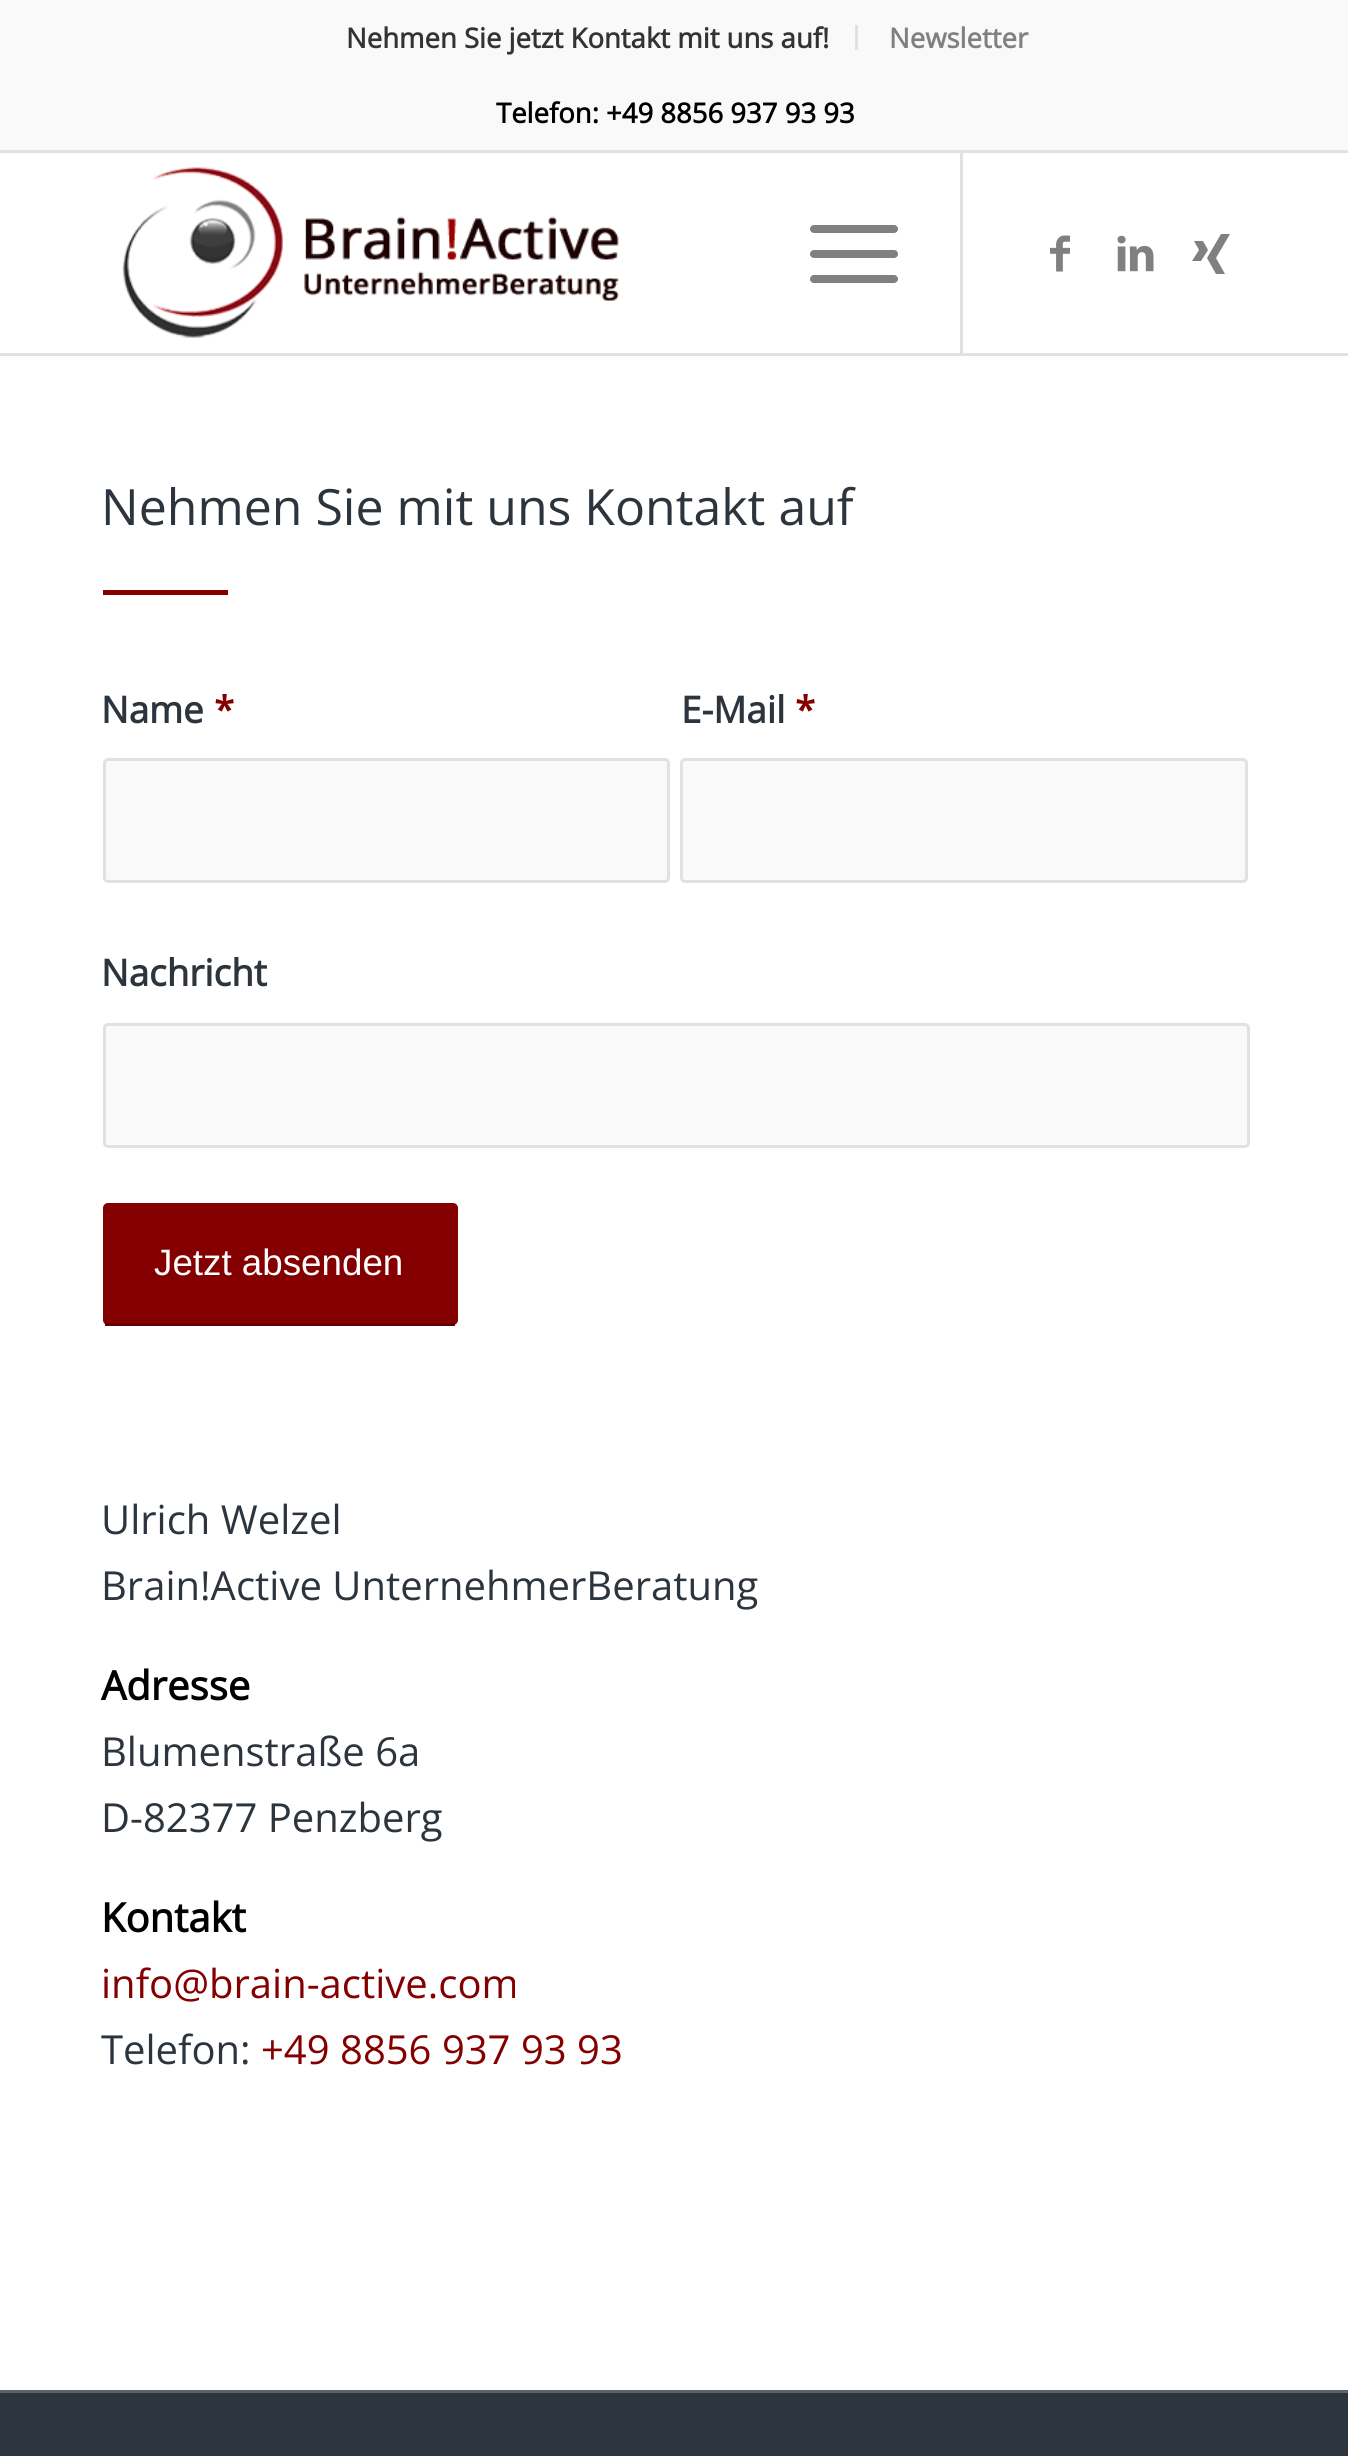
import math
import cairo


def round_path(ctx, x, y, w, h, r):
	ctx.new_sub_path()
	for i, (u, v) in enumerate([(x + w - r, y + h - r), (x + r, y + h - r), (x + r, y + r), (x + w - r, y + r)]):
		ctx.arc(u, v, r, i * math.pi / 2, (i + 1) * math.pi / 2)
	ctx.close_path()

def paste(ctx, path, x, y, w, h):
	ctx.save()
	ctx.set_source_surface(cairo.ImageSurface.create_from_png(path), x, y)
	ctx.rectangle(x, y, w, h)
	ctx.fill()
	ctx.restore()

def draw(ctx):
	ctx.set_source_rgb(1, 1, 1)
	ctx.paint()
	ctx.set_source_rgb(0.973, 0.973, 0.973)
	ctx.rectangle(0, 0, 1348, 150)
	ctx.fill()
	ctx.set_source_rgb(0.882, 0.882, 0.882)
	ctx.rectangle(0, 150, 1348, 3)
	ctx.rectangle(855, 25, 3, 25)
	ctx.fill()
	ctx.select_font_face('Open Sans', cairo.FONT_SLANT_NORMAL, cairo.FONT_WEIGHT_BOLD)
	ctx.set_font_size(27.5)
	ctx.set_source_rgb(0.2, 0.2, 0.2)
	ctx.move_to(346, 48)
	ctx.show_text('Nehmen Sie jetzt Kontakt mit uns auf!')
	ctx.set_source_rgb(0.502, 0.502, 0.502)
	ctx.move_to(889, 48)
	ctx.show_text('Newsletter')
	ctx.set_source_rgb(0, 0, 0)
	ctx.move_to(496, 123)
	ctx.show_text('Telefon: +49 8856 937 93 93')
	ctx.set_source_rgb(0.882, 0.882, 0.882)
	ctx.rectangle(0, 353, 1348, 3)
	ctx.fill()
	paste(ctx, 'media/1.png', 122, 167, 497, 171)
	ctx.rectangle(960, 153, 3, 200)
	ctx.fill()
	ctx.set_source_rgb(0.502, 0.502, 0.502)
	round_path(ctx, 810, 250, 88, 8, 4)
	ctx.fill()
	round_path(ctx, 810, 225, 88, 8, 4)
	ctx.fill()
	round_path(ctx, 810, 275, 88, 8, 4)
	ctx.fill()
	paste(ctx, 'media/2.png', 1050, 235, 20, 37)
	paste(ctx, 'media/3.png', 1117, 235, 37, 37)
	ctx.new_path()
	ctx.move_to(1192, 261)
	ctx.line_to(1201, 261)
	ctx.line_to(1208, 250)
	ctx.line_to(1203, 241)
	ctx.line_to(1194, 241)
	ctx.line_to(1199, 250)
	ctx.close_path()
	ctx.move_to(1207, 258)
	ctx.line_to(1221, 234)
	ctx.line_to(1230, 234)
	ctx.line_to(1216, 258)
	ctx.line_to(1225, 274)
	ctx.line_to(1216, 274)
	ctx.close_path()
	ctx.fill()
	ctx.select_font_face('Open Sans')
	ctx.set_font_size(50)
	ctx.set_source_rgb(0.173, 0.208, 0.239)
	ctx.move_to(101, 525)
	ctx.show_text('Nehmen Sie mit uns Kontakt auf')
	ctx.set_source_rgb(0.518, 0, 0)
	ctx.rectangle(103, 590, 125, 5)
	ctx.fill()
	ctx.select_font_face('Open Sans', cairo.FONT_SLANT_NORMAL, cairo.FONT_WEIGHT_BOLD)
	ctx.set_font_size(36.75)
	ctx.set_source_rgb(0.173, 0.208, 0.239)
	ctx.move_to(101, 723)
	ctx.show_text('Name')
	ctx.set_source_rgb(0.518, 0, 0)
	ctx.move_to(214, 723)
	ctx.show_text('*')
	ctx.set_source_rgb(0.973, 0.973, 0.973)
	round_path(ctx, 104.5, 759.5, 564, 122, 3.5)
	ctx.fill_preserve()
	ctx.set_source_rgb(0.882, 0.882, 0.882)
	ctx.set_line_width(3)
	ctx.stroke()
	ctx.set_source_rgb(0.173, 0.208, 0.239)
	ctx.move_to(681, 723)
	ctx.show_text('E-Mail')
	ctx.set_source_rgb(0.518, 0, 0)
	ctx.move_to(795, 723)
	ctx.show_text('*')
	ctx.set_source_rgb(0.973, 0.973, 0.973)
	round_path(ctx, 681.5, 759.5, 565, 122, 3.5)
	ctx.fill_preserve()
	ctx.set_source_rgb(0.882, 0.882, 0.882)
	ctx.stroke()
	ctx.set_source_rgb(0.173, 0.208, 0.239)
	ctx.move_to(101, 986)
	ctx.show_text('Nachricht')
	ctx.set_source_rgb(0.973, 0.973, 0.973)
	round_path(ctx, 104.5, 1024.5, 1144, 122, 3.5)
	ctx.fill_preserve()
	ctx.set_source_rgb(0.882, 0.882, 0.882)
	ctx.stroke()
	ctx.set_source_rgb(0.518, 0, 0)
	round_path(ctx, 103, 1203, 355, 122, 5)
	ctx.fill()
	ctx.set_source_rgb(0.384, 0, 0)
	ctx.rectangle(105, 1323, 350, 3)
	ctx.fill()
	ctx.select_font_face('Liberation Sans')
	ctx.set_source_rgb(1, 1, 1)
	ctx.move_to(154, 1275)
	ctx.show_text('Jetzt absenden')
	ctx.select_font_face('Open Sans')
	ctx.set_font_size(40)
	ctx.set_source_rgb(0.173, 0.208, 0.239)
	ctx.move_to(101, 1534)
	ctx.show_text('Ulrich Welzel')
	ctx.move_to(101, 1600)
	ctx.show_text('Brain!Active UnternehmerBeratung')
	ctx.select_font_face('Open Sans', cairo.FONT_SLANT_NORMAL, cairo.FONT_WEIGHT_BOLD)
	ctx.set_source_rgb(0, 0, 0)
	ctx.move_to(101, 1700)
	ctx.show_text('Adresse')
	ctx.select_font_face('Open Sans')
	ctx.set_source_rgb(0.173, 0.208, 0.239)
	ctx.move_to(101, 1766)
	ctx.show_text('Blumenstraße 6a')
	ctx.move_to(101, 1832)
	ctx.show_text('D-82377 Penzberg')
	ctx.select_font_face('Open Sans', cairo.FONT_SLANT_NORMAL, cairo.FONT_WEIGHT_BOLD)
	ctx.set_source_rgb(0, 0, 0)
	ctx.move_to(101, 1932)
	ctx.show_text('Kontakt')
	ctx.select_font_face('Open Sans')
	ctx.set_source_rgb(0.518, 0, 0)
	ctx.move_to(101, 1998)
	ctx.show_text('info@brain-active.com')
	ctx.set_source_rgb(0.173, 0.208, 0.239)
	ctx.move_to(101, 2064)
	ctx.show_text('Telefon:')
	ctx.set_source_rgb(0.518, 0, 0)
	ctx.move_to(261, 2064)
	ctx.show_text('+49 8856 937 93 93')
	ctx.set_source_rgb(0.173, 0.208, 0.239)
	ctx.rectangle(0, 2393, 1348, 63)
	ctx.fill()
	ctx.set_source_rgb(0.357, 0.392, 0.42)
	ctx.rectangle(0, 2390, 1348, 3)
	ctx.fill()


surface = cairo.ImageSurface(cairo.FORMAT_RGB24, 1348, 2456)
ctx = cairo.Context(surface)
options = cairo.FontOptions()
options.set_hint_metrics(cairo.HINT_METRICS_OFF)
options.set_hint_style(cairo.HINT_STYLE_NONE)
ctx.set_font_options(options)
ctx.set_miter_limit(4)
draw(ctx)
surface.write_to_png('image.png')
